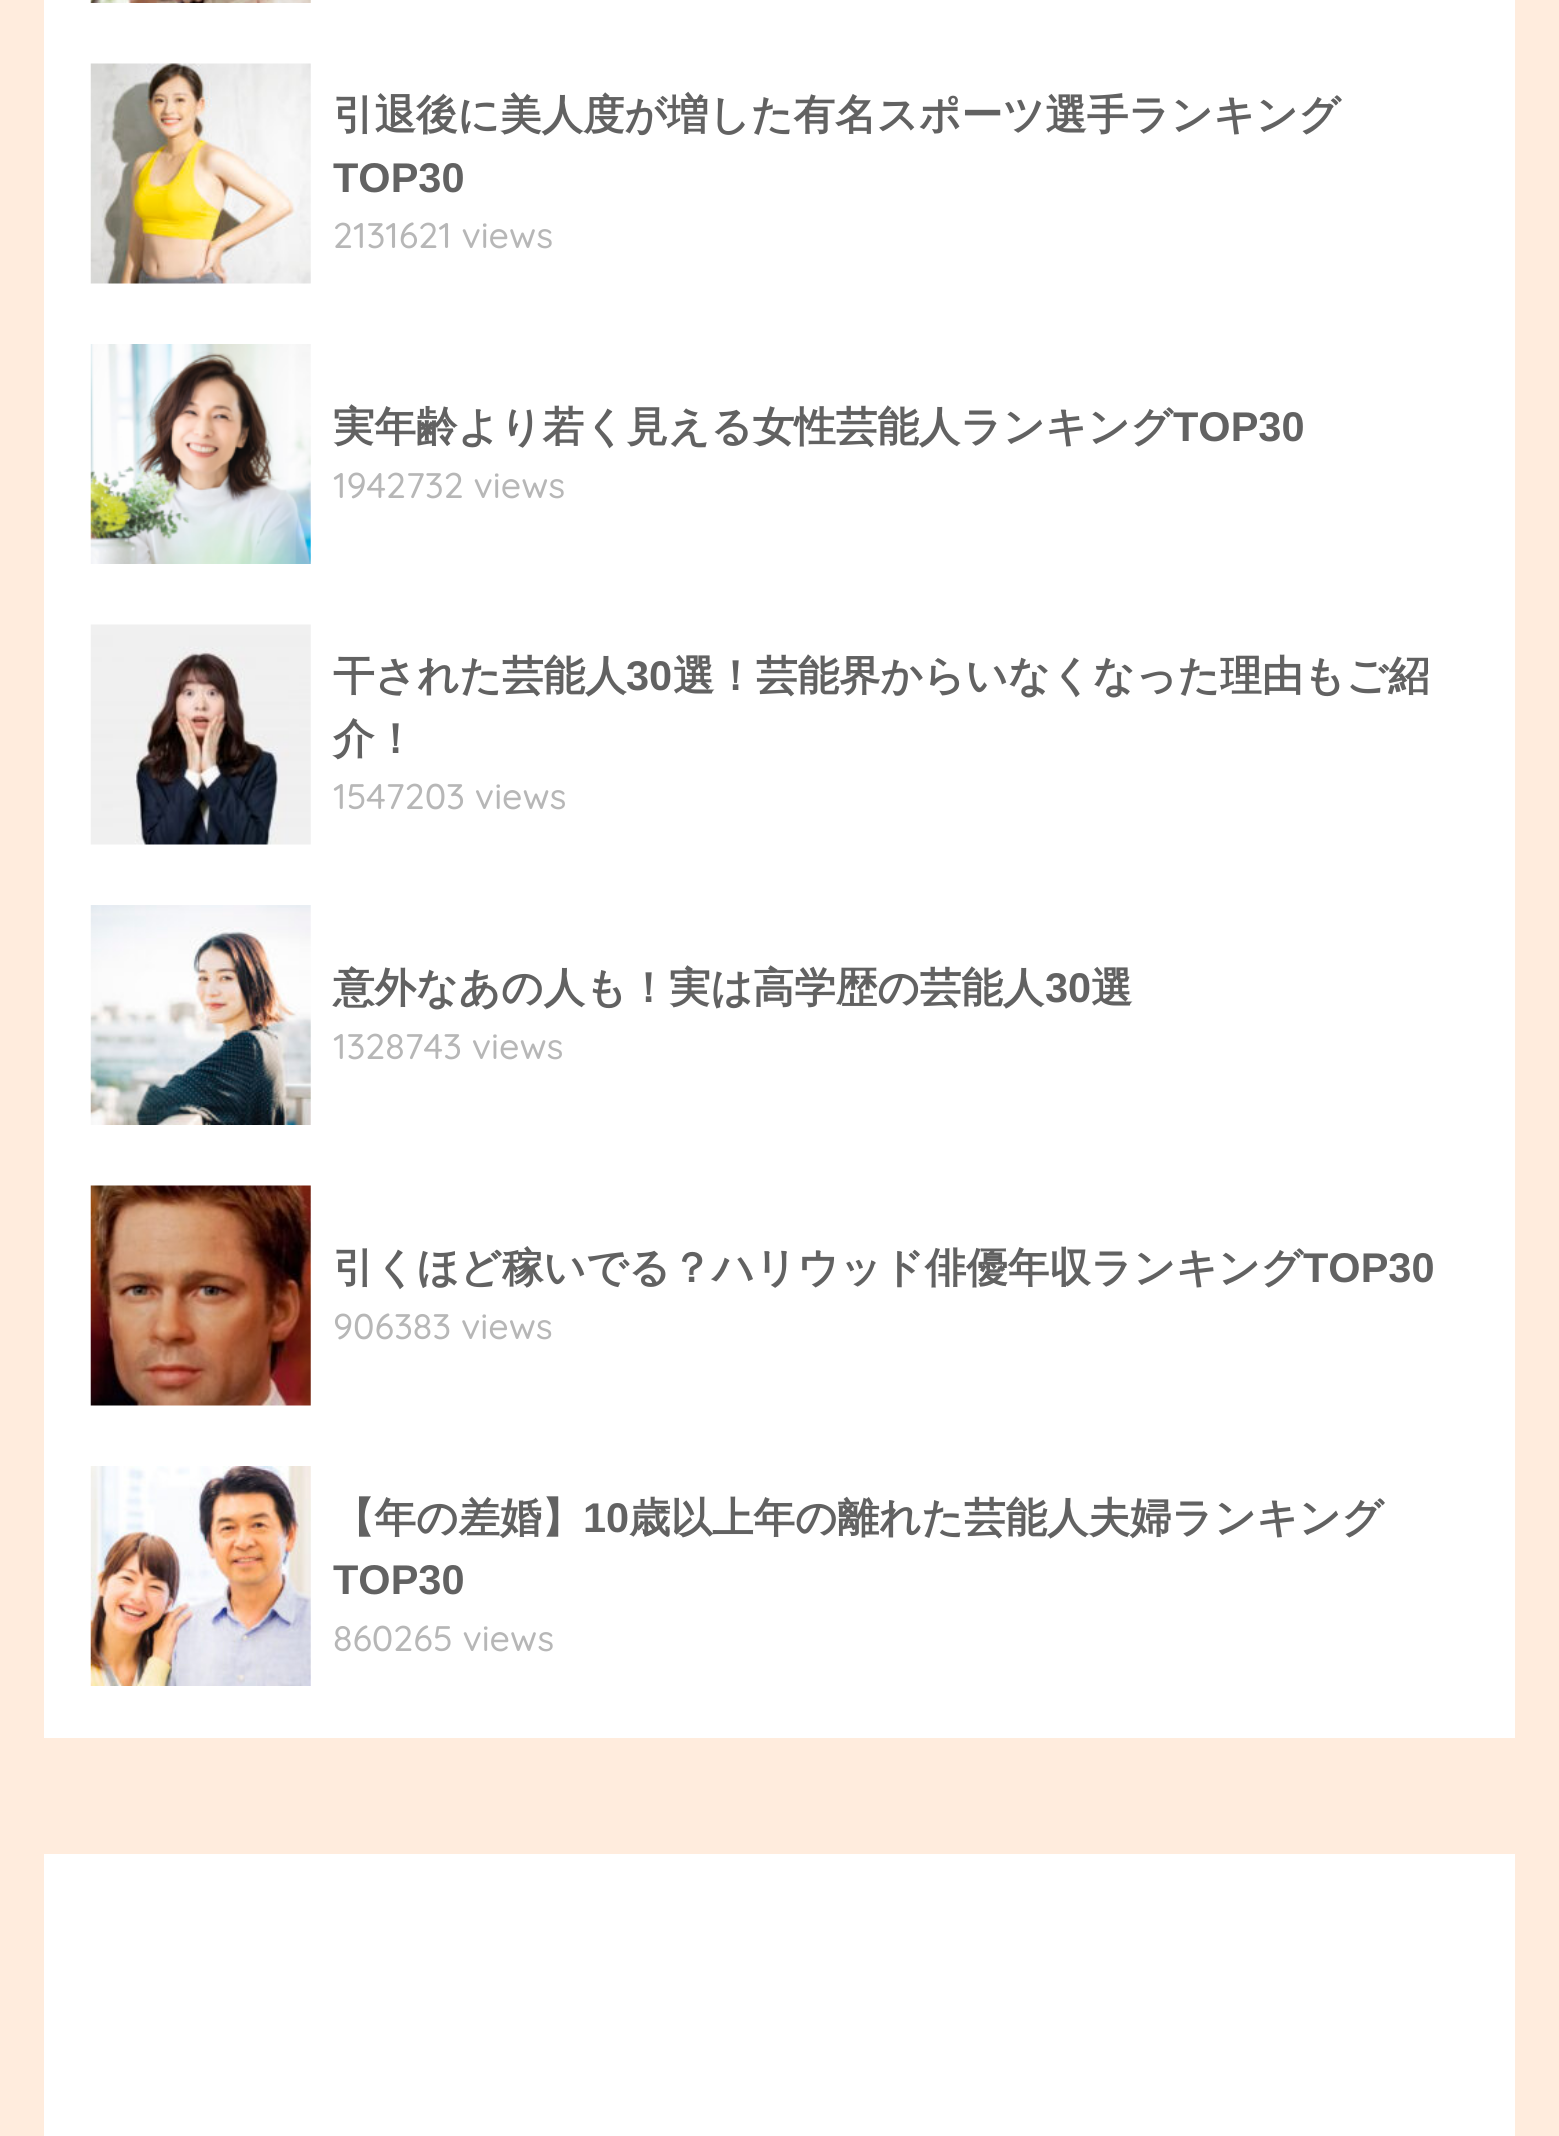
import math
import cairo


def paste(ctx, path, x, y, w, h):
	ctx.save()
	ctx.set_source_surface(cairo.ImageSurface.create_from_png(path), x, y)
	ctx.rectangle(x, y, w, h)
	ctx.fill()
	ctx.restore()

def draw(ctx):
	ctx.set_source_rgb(1, 0.925, 0.867)
	ctx.paint()
	ctx.set_source_rgb(1, 1, 1)
	ctx.rectangle(44, 0, 1471, 1738)
	ctx.fill()
	paste(ctx, 'media/1.png', 90, 0, 221, 3)
	paste(ctx, 'media/2.png', 90, 63, 221, 221)
	ctx.select_font_face('WenQuanYi Zen Hei', cairo.FONT_SLANT_NORMAL, cairo.FONT_WEIGHT_BOLD)
	ctx.set_font_size(41.5)
	ctx.set_source_rgb(0.384, 0.384, 0.384)
	ctx.move_to(333, 129)
	ctx.show_text('引退後に美人度が増した有名スポーツ選手ランキング')
	ctx.select_font_face('Liberation Sans', cairo.FONT_SLANT_NORMAL, cairo.FONT_WEIGHT_BOLD)
	ctx.move_to(333, 192)
	ctx.show_text('TOP30')
	ctx.select_font_face('Quicksand Medium')
	ctx.set_font_size(35.75)
	ctx.set_source_rgb(0.718, 0.718, 0.718)
	ctx.move_to(333, 248)
	ctx.show_text('2131621 views')
	paste(ctx, 'media/3.png', 90, 344, 221, 220)
	ctx.select_font_face('WenQuanYi Zen Hei', cairo.FONT_SLANT_NORMAL, cairo.FONT_WEIGHT_BOLD)
	ctx.set_font_size(41.5)
	ctx.set_source_rgb(0.384, 0.384, 0.384)
	ctx.move_to(333, 441)
	ctx.show_text('実年齢より若く見える女性芸能人ランキング')
	ctx.select_font_face('Liberation Sans', cairo.FONT_SLANT_NORMAL, cairo.FONT_WEIGHT_BOLD)
	ctx.move_to(1173, 441)
	ctx.show_text('TOP30')
	ctx.select_font_face('Quicksand Medium')
	ctx.set_font_size(35.75)
	ctx.set_source_rgb(0.718, 0.718, 0.718)
	ctx.move_to(333, 498)
	ctx.show_text('1942732 views')
	paste(ctx, 'media/4.png', 90, 624, 221, 221)
	ctx.select_font_face('WenQuanYi Zen Hei', cairo.FONT_SLANT_NORMAL, cairo.FONT_WEIGHT_BOLD)
	ctx.set_font_size(41.5)
	ctx.set_source_rgb(0.384, 0.384, 0.384)
	ctx.move_to(333, 690)
	ctx.show_text('干された芸能人')
	ctx.select_font_face('Liberation Sans', cairo.FONT_SLANT_NORMAL, cairo.FONT_WEIGHT_BOLD)
	ctx.move_to(626, 690)
	ctx.show_text('30')
	ctx.select_font_face('WenQuanYi Zen Hei', cairo.FONT_SLANT_NORMAL, cairo.FONT_WEIGHT_BOLD)
	ctx.move_to(673, 690)
	ctx.show_text('選！芸能界からいなくなった理由もご紹')
	ctx.move_to(333, 753)
	ctx.show_text('介！')
	ctx.select_font_face('Quicksand Medium')
	ctx.set_font_size(35.75)
	ctx.set_source_rgb(0.718, 0.718, 0.718)
	ctx.move_to(333, 809)
	ctx.show_text('1547203 views')
	paste(ctx, 'media/5.png', 90, 905, 221, 220)
	ctx.select_font_face('WenQuanYi Zen Hei', cairo.FONT_SLANT_NORMAL, cairo.FONT_WEIGHT_BOLD)
	ctx.set_font_size(41.5)
	ctx.set_source_rgb(0.384, 0.384, 0.384)
	ctx.move_to(333, 1002)
	ctx.show_text('意外なあの人も！実は高学歴の芸能人')
	ctx.select_font_face('Liberation Sans', cairo.FONT_SLANT_NORMAL, cairo.FONT_WEIGHT_BOLD)
	ctx.move_to(1045, 1002)
	ctx.show_text('30')
	ctx.select_font_face('WenQuanYi Zen Hei', cairo.FONT_SLANT_NORMAL, cairo.FONT_WEIGHT_BOLD)
	ctx.move_to(1091, 1002)
	ctx.show_text('選')
	ctx.select_font_face('Quicksand Medium')
	ctx.set_font_size(35.75)
	ctx.set_source_rgb(0.718, 0.718, 0.718)
	ctx.move_to(333, 1059)
	ctx.show_text('1328743 views')
	paste(ctx, 'media/6.png', 90, 1185, 221, 221)
	ctx.select_font_face('WenQuanYi Zen Hei', cairo.FONT_SLANT_NORMAL, cairo.FONT_WEIGHT_BOLD)
	ctx.set_font_size(41.5)
	ctx.set_source_rgb(0.384, 0.384, 0.384)
	ctx.move_to(333, 1282)
	ctx.show_text('引くほど稼いでる？ハリウッド俳優年収ランキング')
	ctx.select_font_face('Liberation Sans', cairo.FONT_SLANT_NORMAL, cairo.FONT_WEIGHT_BOLD)
	ctx.move_to(1303, 1282)
	ctx.show_text('TOP30')
	ctx.select_font_face('Quicksand Medium')
	ctx.set_font_size(35.75)
	ctx.set_source_rgb(0.718, 0.718, 0.718)
	ctx.move_to(333, 1339)
	ctx.show_text('906383 views')
	paste(ctx, 'media/7.png', 90, 1466, 221, 220)
	ctx.select_font_face('WenQuanYi Zen Hei', cairo.FONT_SLANT_NORMAL, cairo.FONT_WEIGHT_BOLD)
	ctx.set_font_size(41.5)
	ctx.set_source_rgb(0.384, 0.384, 0.384)
	ctx.move_to(333, 1532)
	ctx.show_text('【年の差婚】')
	ctx.select_font_face('Liberation Sans', cairo.FONT_SLANT_NORMAL, cairo.FONT_WEIGHT_BOLD)
	ctx.move_to(583, 1532)
	ctx.show_text('10')
	ctx.select_font_face('WenQuanYi Zen Hei', cairo.FONT_SLANT_NORMAL, cairo.FONT_WEIGHT_BOLD)
	ctx.move_to(629, 1532)
	ctx.show_text('歳以上年の離れた芸能人夫婦ランキング')
	ctx.select_font_face('Liberation Sans', cairo.FONT_SLANT_NORMAL, cairo.FONT_WEIGHT_BOLD)
	ctx.move_to(333, 1594)
	ctx.show_text('TOP30')
	ctx.select_font_face('Quicksand Medium')
	ctx.set_font_size(35.75)
	ctx.set_source_rgb(0.718, 0.718, 0.718)
	ctx.move_to(333, 1651)
	ctx.show_text('860265 views')
	ctx.set_source_rgb(1, 1, 1)
	ctx.rectangle(44, 1854, 1471, 282)
	ctx.fill()


surface = cairo.ImageSurface(cairo.FORMAT_RGB24, 1559, 2136)
ctx = cairo.Context(surface)
options = cairo.FontOptions()
options.set_hint_metrics(cairo.HINT_METRICS_OFF)
options.set_hint_style(cairo.HINT_STYLE_NONE)
ctx.set_font_options(options)
ctx.set_miter_limit(4)
draw(ctx)
surface.write_to_png('image.png')
